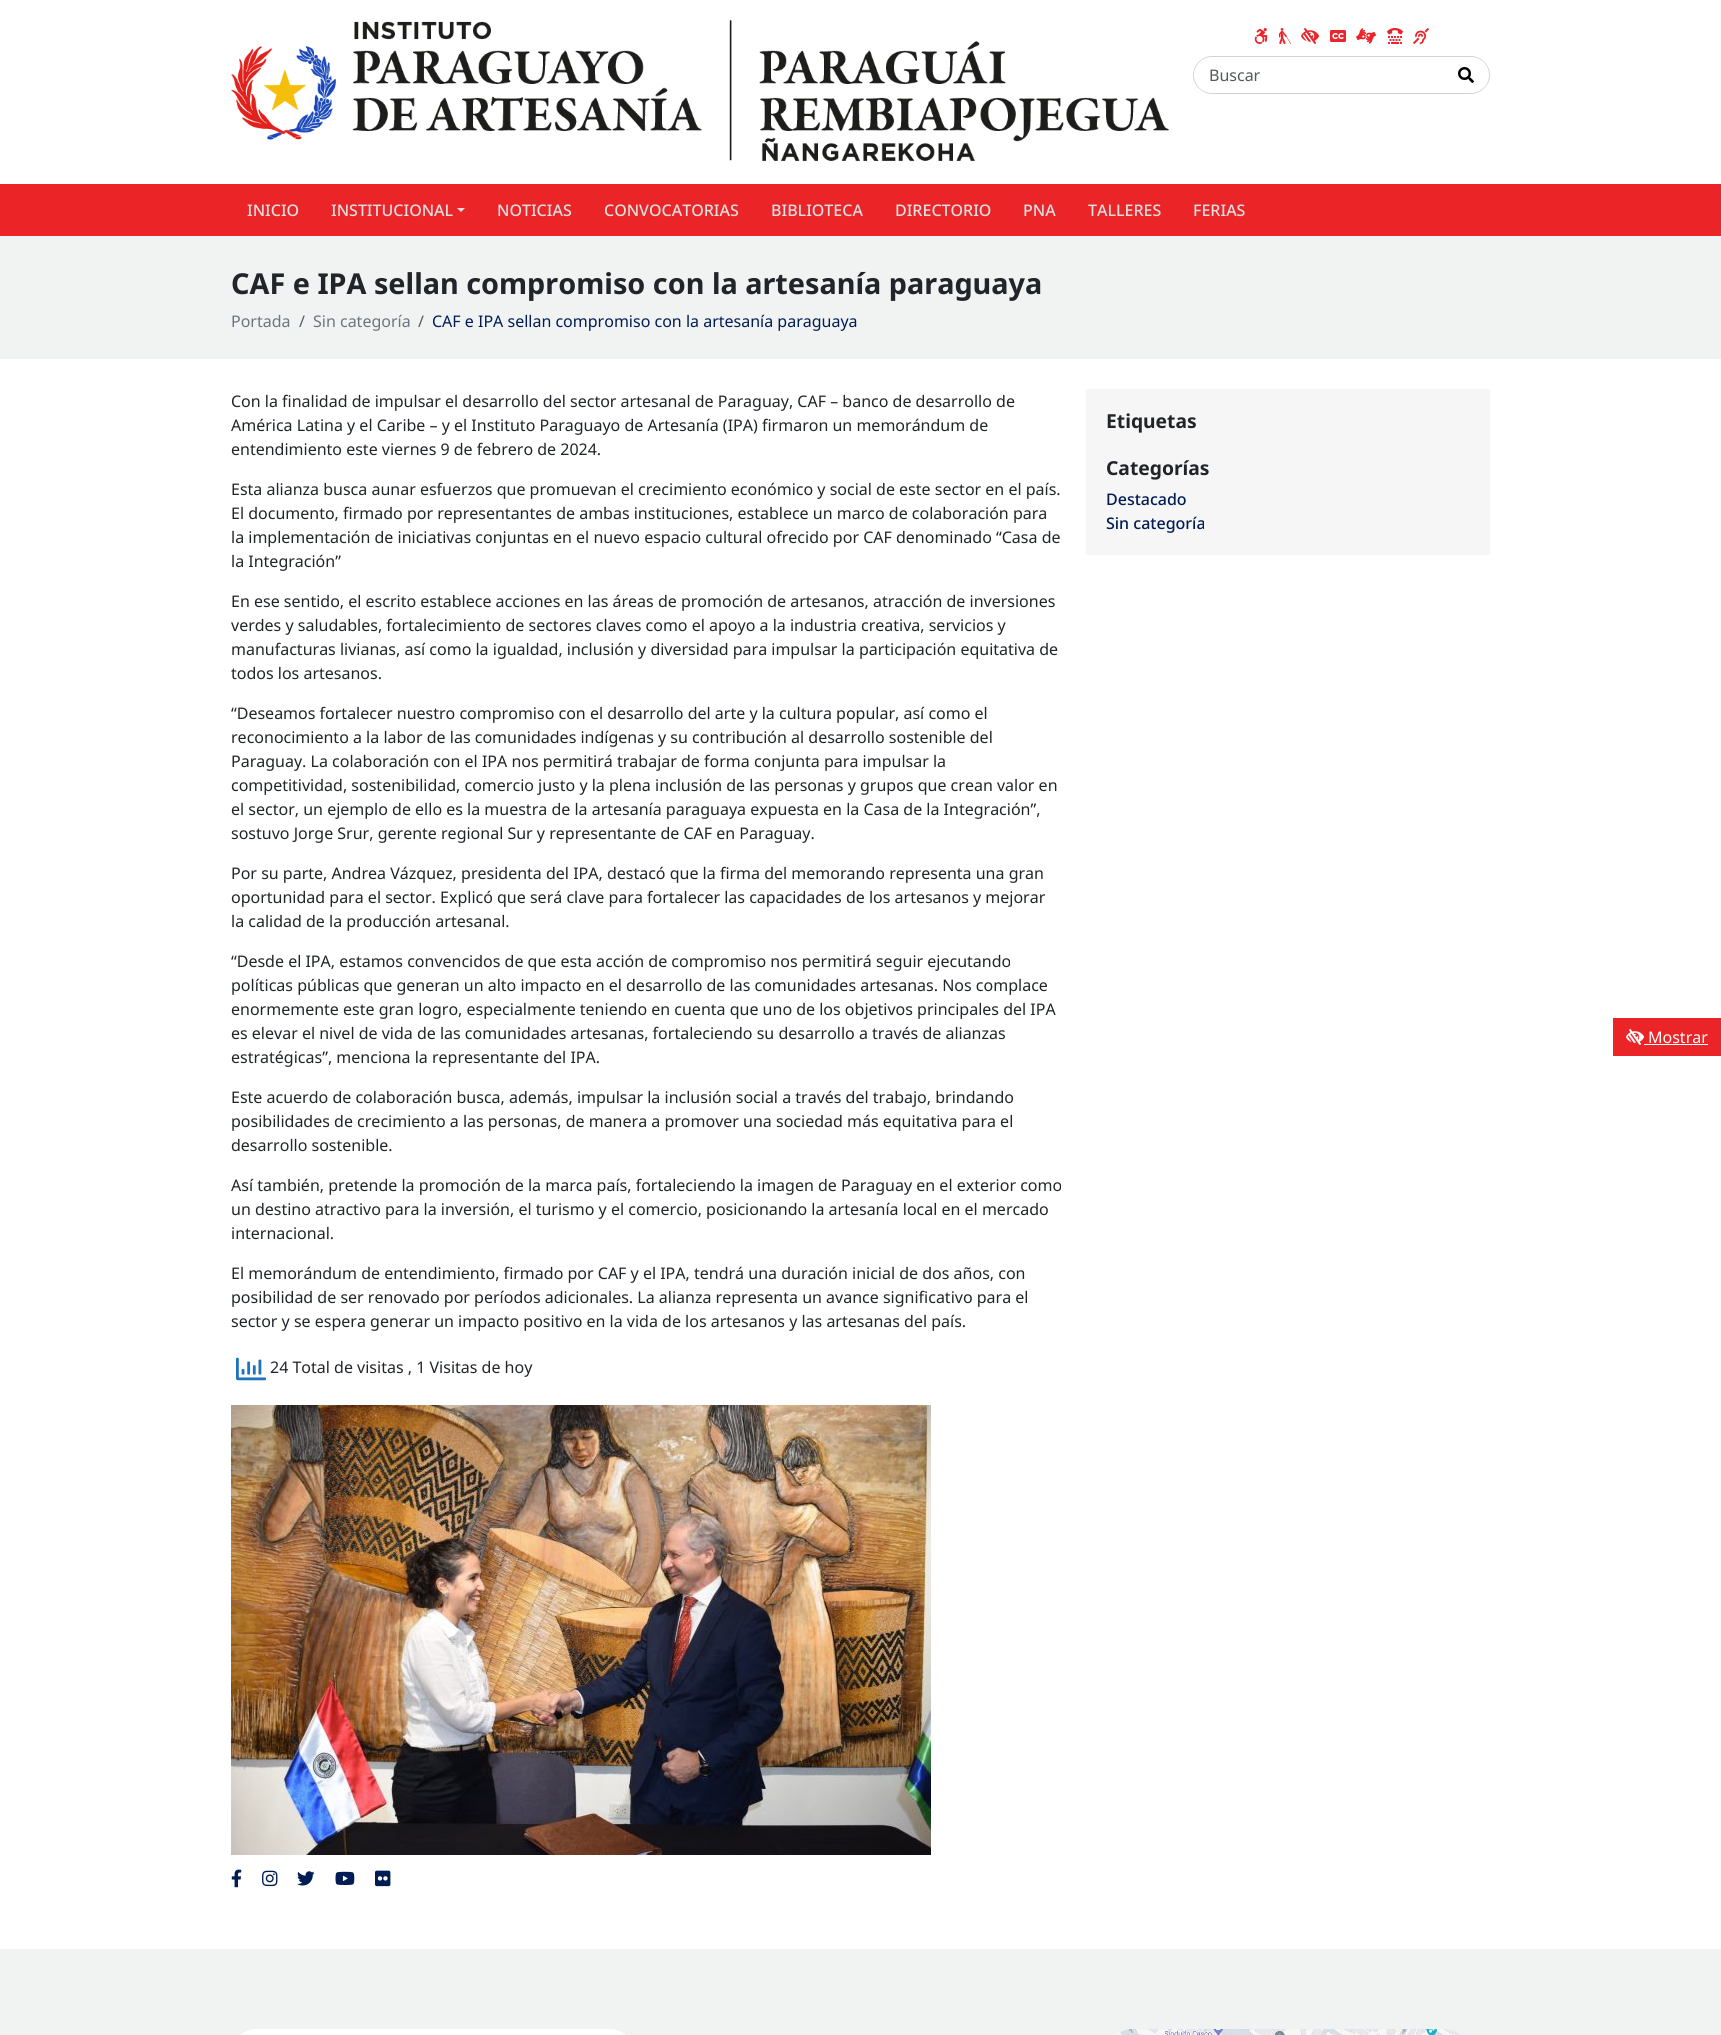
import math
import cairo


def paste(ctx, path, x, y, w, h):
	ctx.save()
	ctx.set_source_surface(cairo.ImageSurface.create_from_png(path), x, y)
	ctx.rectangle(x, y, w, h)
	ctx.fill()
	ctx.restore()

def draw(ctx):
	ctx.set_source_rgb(1, 1, 1)
	ctx.paint()
	paste(ctx, 'media/1.png', 231, 20, 938, 141)
	paste(ctx, 'media/2.png', 1254, 28, 14, 16)
	paste(ctx, 'media/3.png', 1279, 28, 12, 16)
	paste(ctx, 'media/4.png', 1301, 28, 18, 16)
	paste(ctx, 'media/5.png', 1330, 30, 16, 12)
	paste(ctx, 'media/6.png', 1356, 28, 20, 16)
	paste(ctx, 'media/7.png', 1387, 28, 16, 16)
	paste(ctx, 'media/8.png', 1413, 28, 16, 16)
	ctx.set_source_rgb(0.808, 0.831, 0.855)
	ctx.set_fill_rule(cairo.FILL_RULE_EVEN_ODD)
	ctx.new_path()
	ctx.move_to(1212, 56)
	ctx.line_to(1444, 56)
	ctx.line_to(1444, 94)
	ctx.line_to(1212, 94)
	ctx.curve_to(1202, 94, 1193, 85, 1193, 75)
	ctx.curve_to(1193, 65, 1202, 56, 1212, 56)
	ctx.close_path()
	ctx.move_to(1212, 57)
	ctx.line_to(1444, 57)
	ctx.line_to(1444, 93)
	ctx.line_to(1212, 93)
	ctx.curve_to(1202, 93, 1194, 85, 1194, 75)
	ctx.curve_to(1194, 65, 1202, 57, 1212, 57)
	ctx.close_path()
	ctx.fill()
	ctx.select_font_face('Noto Sans')
	ctx.set_font_size(16)
	ctx.set_source_rgb(0.333, 0.349, 0.357)
	ctx.move_to(1209, 81)
	ctx.show_text('Buscar')
	ctx.set_source_rgb(0.808, 0.831, 0.855)
	ctx.new_path()
	ctx.move_to(1443, 56)
	ctx.line_to(1471, 56)
	ctx.curve_to(1481, 56, 1490, 65, 1490, 75)
	ctx.curve_to(1490, 85, 1481, 94, 1471, 94)
	ctx.line_to(1443, 94)
	ctx.close_path()
	ctx.move_to(1443, 57)
	ctx.line_to(1471, 57)
	ctx.curve_to(1481, 57, 1489, 65, 1489, 75)
	ctx.curve_to(1489, 85, 1481, 93, 1471, 93)
	ctx.line_to(1443, 93)
	ctx.close_path()
	ctx.fill()
	paste(ctx, 'media/9.png', 1458, 67, 16, 16)
	ctx.set_source_rgb(0.918, 0.141, 0.157)
	ctx.rectangle(0, 184, 1721, 52)
	ctx.fill()
	ctx.select_font_face('Noto Sans Medium')
	ctx.set_source_rgb(0.878, 0.878, 0.878)
	ctx.move_to(247, 216)
	ctx.show_text('INICIO')
	ctx.move_to(331, 216)
	ctx.show_text('INSTITUCIONAL')
	ctx.set_fill_rule(cairo.FILL_RULE_WINDING)
	ctx.new_path()
	ctx.move_to(457, 208)
	ctx.line_to(465, 208)
	ctx.line_to(461, 212)
	ctx.close_path()
	ctx.fill()
	for x, y, s in [
		(497, 216, 'NOTICIAS'),
		(604, 216, 'CONVOCATORIAS'),
		(771, 216, 'BIBLIOTECA'),
		(895, 216, 'DIRECTORIO'),
		(1023, 216, 'PNA'),
		(1088, 216, 'TALLERES'),
		(1193, 216, 'FERIAS'),
	]:
		ctx.move_to(x, y)
		ctx.show_text(s)
	ctx.set_source_rgb(0.945, 0.953, 0.949)
	ctx.rectangle(0, 236, 1721, 123)
	ctx.fill()
	ctx.select_font_face('Noto Sans', cairo.FONT_SLANT_NORMAL, cairo.FONT_WEIGHT_BOLD)
	ctx.set_font_size(28.8)
	ctx.set_source_rgb(0.129, 0.145, 0.161)
	ctx.move_to(231, 294)
	ctx.show_text('CAF e IPA sellan compromiso con la artesanía paraguaya')
	ctx.select_font_face('Noto Sans')
	ctx.set_font_size(16)
	ctx.set_source_rgb(0.424, 0.459, 0.49)
	ctx.move_to(231, 327)
	ctx.show_text('Portada')
	ctx.set_source_rgb(0.333, 0.349, 0.357)
	ctx.move_to(299, 327)
	ctx.show_text('/')
	ctx.set_source_rgb(0.424, 0.459, 0.49)
	ctx.move_to(313, 327)
	ctx.show_text('Sin categoría')
	ctx.set_source_rgb(0.333, 0.349, 0.357)
	ctx.move_to(418, 327)
	ctx.show_text('/')
	ctx.set_source_rgb(0, 0.11, 0.329)
	ctx.move_to(432, 327)
	ctx.show_text('CAF e IPA sellan compromiso con la artesanía paraguaya')
	ctx.set_source_rgb(0.129, 0.145, 0.161)
	for x, y, s in [
		(231, 407, 'Con la finalidad de impulsar el desarrollo del sector artesanal de Paraguay, CAF – banco de desarrollo de'),
		(231, 431, 'América Latina y el Caribe – y el Instituto Paraguayo de Artesanía (IPA) firmaron un memorándum de'),
		(231, 455, 'entendimiento este viernes 9 de febrero de 2024.'),
		(231, 495, 'Esta alianza busca aunar esfuerzos que promuevan el crecimiento económico y social de este sector en el país.'),
		(231, 519, 'El documento, firmado por representantes de ambas instituciones, establece un marco de colaboración para'),
		(231, 543, 'la implementación de iniciativas conjuntas en el nuevo espacio cultural ofrecido por CAF denominado “Casa de'),
		(231, 567, 'la Integración”'),
		(231, 607, 'En ese sentido, el escrito establece acciones en las áreas de promoción de artesanos, atracción de inversiones'),
		(231, 631, 'verdes y saludables, fortalecimiento de sectores claves como el apoyo a la industria creativa, servicios y'),
		(231, 655, 'manufacturas livianas, así como la igualdad, inclusión y diversidad para impulsar la participación equitativa de'),
		(231, 679, 'todos los artesanos.'),
		(231, 719, '“Deseamos fortalecer nuestro compromiso con el desarrollo del arte y la cultura popular, así como el'),
		(231, 743, 'reconocimiento a la labor de las comunidades indígenas y su contribución al desarrollo sostenible del'),
		(231, 767, 'Paraguay. La colaboración con el IPA nos permitirá trabajar de forma conjunta para impulsar la'),
		(231, 791, 'competitividad, sostenibilidad, comercio justo y la plena inclusión de las personas y grupos que crean valor en'),
		(231, 815, 'el sector, un ejemplo de ello es la muestra de la artesanía paraguaya expuesta en la Casa de la Integración”,'),
		(231, 839, 'sostuvo Jorge Srur, gerente regional Sur y representante de CAF en Paraguay.'),
		(231, 879, 'Por su parte, Andrea Vázquez, presidenta del IPA, destacó que la firma del memorando representa una gran'),
		(231, 903, 'oportunidad para el sector. Explicó que será clave para fortalecer las capacidades de los artesanos y mejorar'),
		(231, 927, 'la calidad de la producción artesanal.'),
		(231, 967, '“Desde el IPA, estamos convencidos de que esta acción de compromiso nos permitirá seguir ejecutando'),
		(231, 991, 'políticas públicas que generan un alto impacto en el desarrollo de las comunidades artesanas. Nos complace'),
		(231, 1015, 'enormemente este gran logro, especialmente teniendo en cuenta que uno de los objetivos principales del IPA'),
		(231, 1039, 'es elevar el nivel de vida de las comunidades artesanas, fortaleciendo su desarrollo a través de alianzas'),
		(231, 1063, 'estratégicas”, menciona la representante del IPA.'),
		(231, 1103, 'Este acuerdo de colaboración busca, además, impulsar la inclusión social a través del trabajo, brindando'),
		(231, 1127, 'posibilidades de crecimiento a las personas, de manera a promover una sociedad más equitativa para el'),
		(231, 1151, 'desarrollo sostenible.'),
		(231, 1191, 'Así también, pretende la promoción de la marca país, fortaleciendo la imagen de Paraguay en el exterior como'),
		(231, 1215, 'un destino atractivo para la inversión, el turismo y el comercio, posicionando la artesanía local en el mercado'),
		(231, 1239, 'internacional.'),
		(231, 1279, 'El memorándum de entendimiento, firmado por CAF y el IPA, tendrá una duración inicial de dos años, con'),
		(231, 1303, 'posibilidad de ser renovado por períodos adicionales. La alianza representa un avance significativo para el'),
		(231, 1327, 'sector y se espera generar un impacto positivo en la vida de los artesanos y las artesanas del país.'),
	]:
		ctx.move_to(x, y)
		ctx.show_text(s)
	paste(ctx, 'media/10.png', 236, 1357, 30, 24)
	ctx.move_to(270, 1373)
	ctx.show_text('24 Total de visitas , 1 Visitas de hoy')
	paste(ctx, 'media/11.png', 231, 1405, 700, 450)
	paste(ctx, 'media/12.png', 231, 1869, 11, 19)
	paste(ctx, 'media/13.png', 262, 1870, 16, 17)
	paste(ctx, 'media/14.png', 297, 1871, 18, 15)
	paste(ctx, 'media/15.png', 335, 1871, 20, 14)
	paste(ctx, 'media/16.png', 375, 1870, 16, 17)
	ctx.set_source_rgb(0.961, 0.961, 0.961)
	ctx.rectangle(1086, 389, 404, 166)
	ctx.fill()
	ctx.select_font_face('Noto Sans', cairo.FONT_SLANT_NORMAL, cairo.FONT_WEIGHT_BOLD)
	ctx.set_font_size(19.25)
	ctx.set_source_rgb(0.129, 0.145, 0.161)
	ctx.move_to(1106, 428)
	ctx.show_text('Etiquetas')
	ctx.move_to(1106, 475)
	ctx.show_text('Categorías')
	ctx.select_font_face('Noto Sans Medium')
	ctx.set_font_size(16)
	ctx.set_source_rgb(0, 0.11, 0.329)
	ctx.move_to(1106, 505)
	ctx.show_text('Destacado')
	ctx.move_to(1106, 529)
	ctx.show_text('Sin categoría')
	ctx.set_source_rgb(0.918, 0.141, 0.157)
	ctx.rectangle(1613, 1018, 108, 38)
	ctx.fill()
	paste(ctx, 'media/17.png', 1626, 1029, 18, 16)
	ctx.select_font_face('Noto Sans')
	ctx.set_source_rgb(1, 1, 1)
	ctx.move_to(1648, 1043)
	ctx.show_text('Mostrar')
	ctx.rectangle(1644, 1044, 64, 1)
	ctx.fill()
	ctx.set_source_rgb(0.945, 0.953, 0.949)
	ctx.rectangle(0, 1949, 1721, 86)
	ctx.fill()
	paste(ctx, 'media/18.png', 240, 2029, 386, 6)
	paste(ctx, 'media/19.png', 1116, 2029, 345, 6)


surface = cairo.ImageSurface(cairo.FORMAT_RGB24, 1721, 2035)
ctx = cairo.Context(surface)
options = cairo.FontOptions()
options.set_hint_metrics(cairo.HINT_METRICS_OFF)
options.set_hint_style(cairo.HINT_STYLE_NONE)
ctx.set_font_options(options)
ctx.set_miter_limit(4)
draw(ctx)
surface.write_to_png('image.png')
